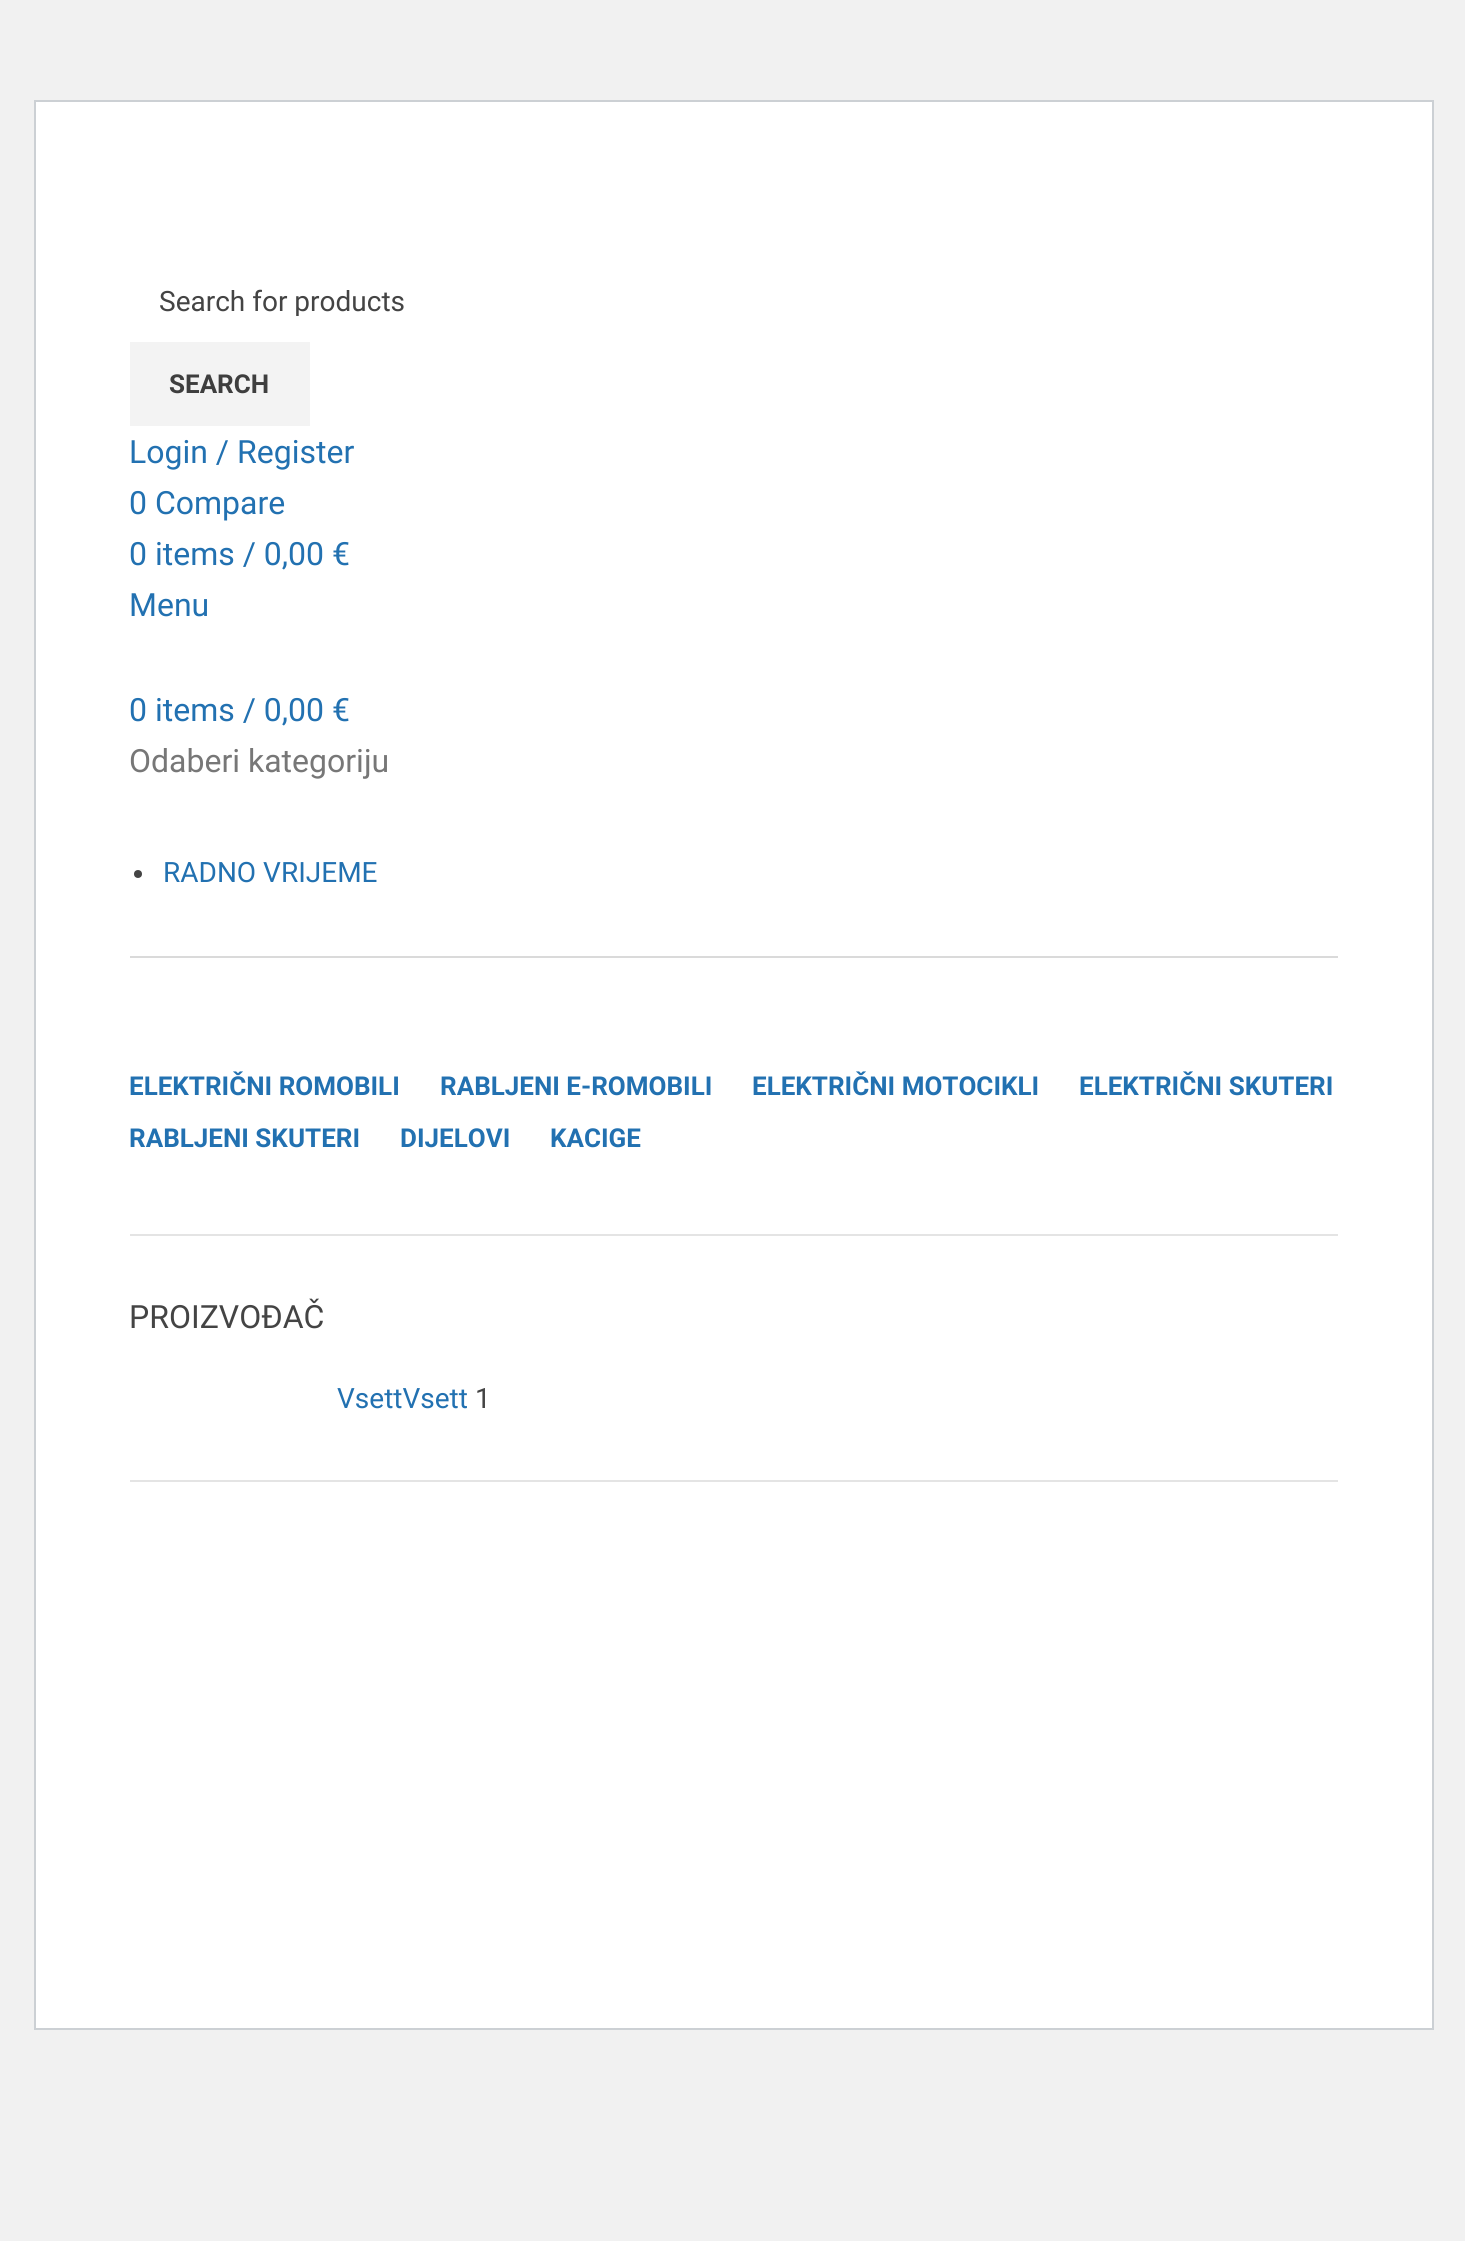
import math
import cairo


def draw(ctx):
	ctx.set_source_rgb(0.945, 0.945, 0.945)
	ctx.paint()
	ctx.set_source_rgb(1, 1, 1)
	ctx.rectangle(35, 101, 1398, 1928)
	ctx.fill_preserve()
	ctx.set_source_rgb(0.8, 0.816, 0.831)
	ctx.stroke()
	ctx.save()
	ctx.rectangle(160, 284, 1148, 32)
	ctx.clip()
	ctx.select_font_face('Roboto')
	ctx.set_font_size(28)
	ctx.set_source_rgb(0.267, 0.267, 0.267)
	ctx.move_to(159, 311)
	ctx.show_text('Search for products')
	ctx.restore()
	ctx.set_source_rgb(0.953, 0.953, 0.953)
	ctx.rectangle(130, 342, 180, 84)
	ctx.fill()
	ctx.select_font_face('Roboto', cairo.FONT_SLANT_NORMAL, cairo.FONT_WEIGHT_BOLD)
	ctx.set_font_size(26)
	ctx.set_source_rgb(0.243, 0.243, 0.243)
	ctx.move_to(169, 393)
	ctx.show_text('SEARCH')
	ctx.select_font_face('Roboto')
	ctx.set_font_size(32)
	ctx.set_source_rgb(0.133, 0.443, 0.694)
	for x, y, s in [
		(129, 463, 'Login / Register'),
		(129, 514, '0 Compare'),
		(129, 565, '0 items / 0,00 €'),
		(129, 616, 'Menu'),
		(129, 721, '0 items / 0,00 €'),
	]:
		ctx.move_to(x, y)
		ctx.show_text(s)
	ctx.set_source_rgb(0.467, 0.467, 0.467)
	ctx.move_to(129, 772)
	ctx.show_text('Odaberi kategoriju')
	ctx.set_source_rgb(0.267, 0.267, 0.267)
	ctx.new_path()
	ctx.arc(138, 874, 4, 0, 2 * math.pi)
	ctx.fill()
	ctx.set_font_size(28)
	ctx.set_source_rgb(0.133, 0.443, 0.694)
	ctx.move_to(163, 882)
	ctx.show_text('RADNO VRIJEME')
	ctx.set_source_rgb(0.855, 0.855, 0.855)
	ctx.rectangle(130, 956, 1208, 2)
	ctx.fill()
	ctx.set_source_rgb(0.894, 0.894, 0.894)
	ctx.rectangle(130, 1234, 1208, 2)
	ctx.fill()
	ctx.select_font_face('Roboto', cairo.FONT_SLANT_NORMAL, cairo.FONT_WEIGHT_BOLD)
	ctx.set_font_size(26)
	ctx.set_source_rgb(0.133, 0.443, 0.694)
	for x, y, s in [
		(129, 1095, 'ELEKTRIČNI ROMOBILI'),
		(440, 1095, 'RABLJENI E-ROMOBILI'),
		(752, 1095, 'ELEKTRIČNI MOTOCIKLI'),
		(1079, 1095, 'ELEKTRIČNI SKUTERI'),
		(129, 1147, 'RABLJENI SKUTERI'),
		(400, 1147, 'DIJELOVI'),
		(550, 1147, 'KACIGE'),
	]:
		ctx.move_to(x, y)
		ctx.show_text(s)
	ctx.set_source_rgb(0.894, 0.894, 0.894)
	ctx.rectangle(130, 1480, 1208, 2)
	ctx.fill()
	ctx.select_font_face('Roboto')
	ctx.set_font_size(32)
	ctx.set_source_rgb(0.267, 0.267, 0.267)
	ctx.move_to(129, 1328)
	ctx.show_text('PROIZVOĐAČ')
	ctx.set_font_size(28)
	ctx.set_source_rgb(0.133, 0.443, 0.694)
	ctx.move_to(337, 1408)
	ctx.show_text('VsettVsett')
	ctx.set_source_rgb(0.267, 0.267, 0.267)
	ctx.move_to(475, 1408)
	ctx.show_text('1')


surface = cairo.ImageSurface(cairo.FORMAT_RGB24, 1465, 2241)
ctx = cairo.Context(surface)
options = cairo.FontOptions()
options.set_hint_metrics(cairo.HINT_METRICS_OFF)
options.set_hint_style(cairo.HINT_STYLE_NONE)
ctx.set_font_options(options)
ctx.set_miter_limit(4)
draw(ctx)
surface.write_to_png('image.png')
